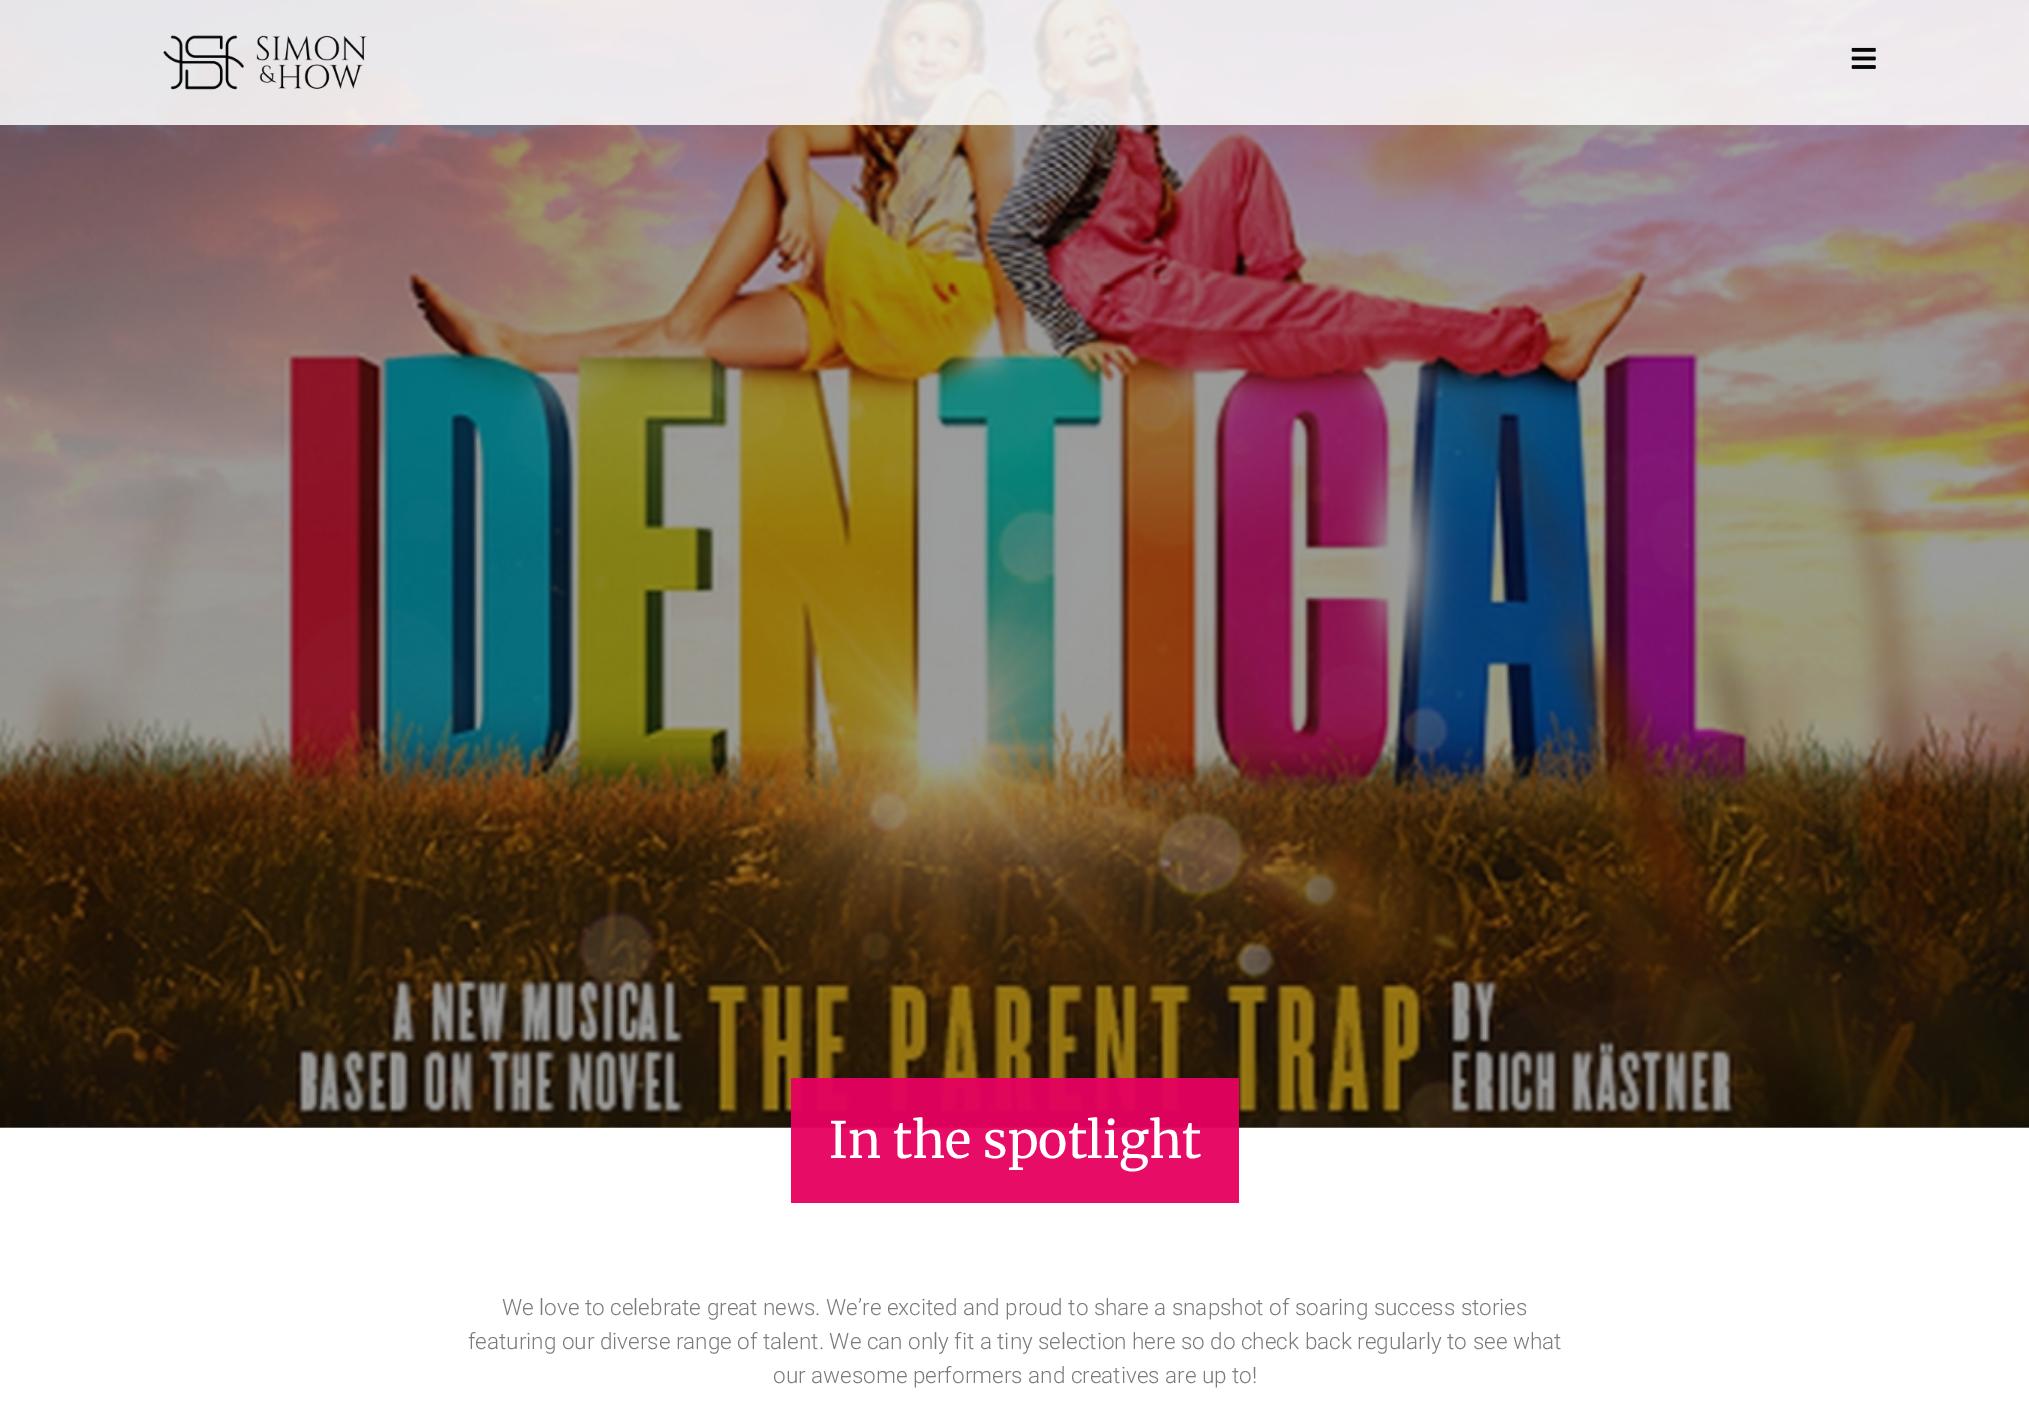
%!PS
<< /PageSize [2029 1414] /PageUsesTransparency true >> setpagedevice
/rgb { 3 { 255 div 3 1 roll } repeat setrgbcolor } def
/font { [ exch dup neg 0 0 3 -1 roll 0 0 ] selectfont } def
/text { moveto show } def
/alpha { dup .setfillconstantalpha .setstrokeconstantalpha } def
/picture { 5 dict begin { /h /w /y /x /name } { exch def } forall
  gsave x y translate w h scale
  w h 8 [w 0 0 h 0 0] name (r) file false 3 colorimage grestore end } def
0 .pushpdf14devicefilter
0 1414 translate 1 -1 scale
4 setmiterlimit
255 255 255 rgb
0 0 2029 1414 rectfill
155 156 156 rgb
0 1127 2029 1 rectfill
(img_03.rgb) 0 0 2029 1128 picture
0.85 alpha
255 255 255 rgb
0 0 2029 125 rectfill
1 alpha
(img_01.rgb) 163 35 204 55 picture
(img_02.rgb) 1851 47 25 22 picture
0.95 alpha
230 0 95 rgb
791 1078 448 125 rectfill
/Merriweather-Regular 50 font
1 alpha
255 255 255 rgb
(In the spotlight) 829 1158 text
/Roboto-Light 22.5 font
122 122 122 rgb
(We love to celebrate great news. We’re excited and proud to share a snapshot of soaring success stories) 502 1315 text
(featuring our diverse range of talent. We can only fit a tiny selection here so do check back regularly to see what) 468 1349 text
(our awesome performers and creatives are up to!) 773 1383 text
.poppdf14devicefilter showpage
